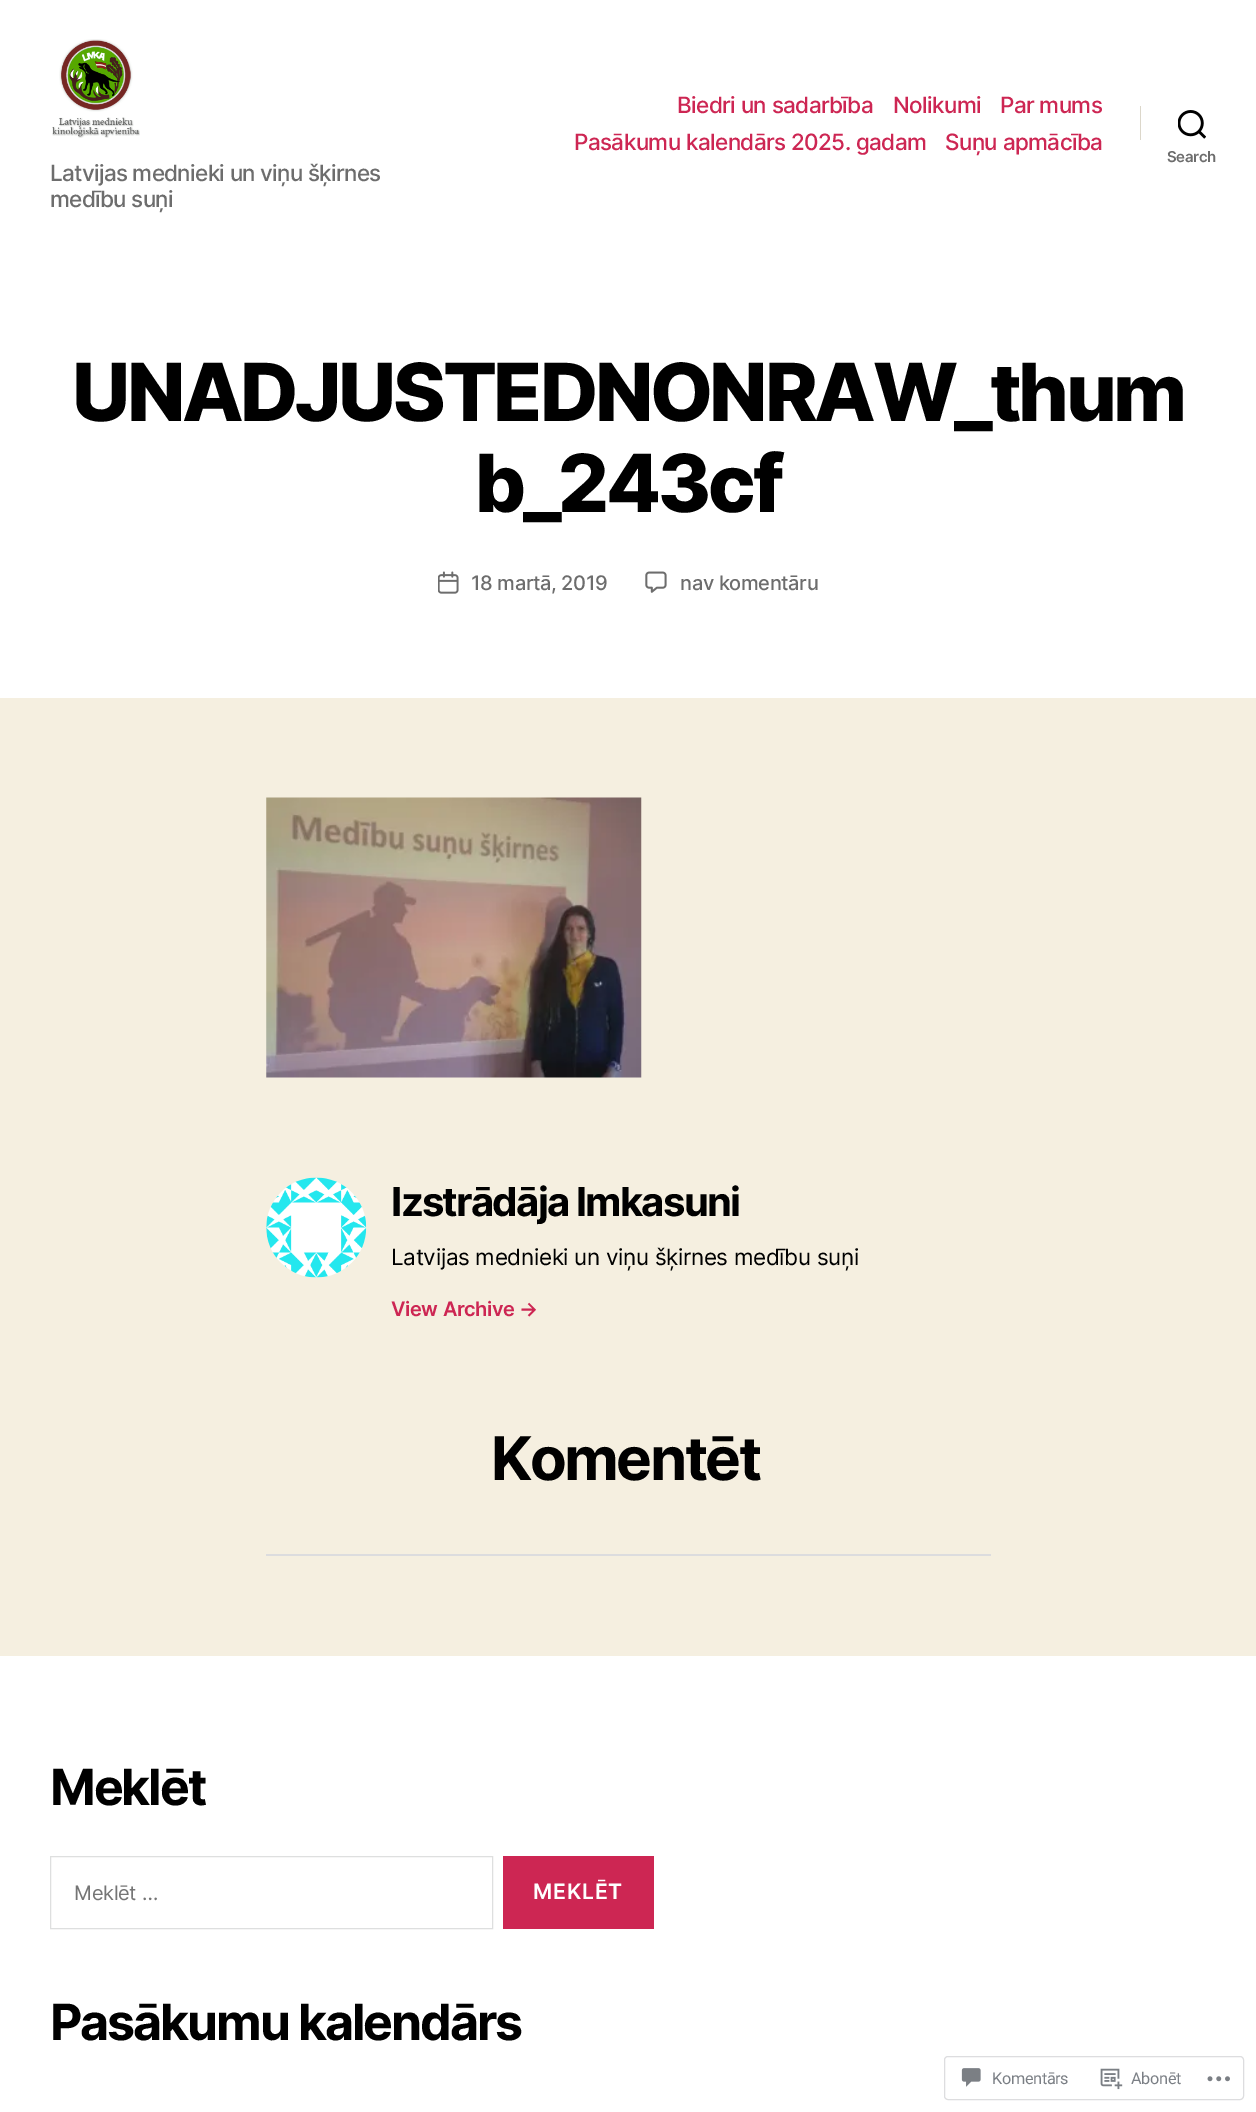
%!PS
<< /PageSize [1256 2112] >> setpagedevice
/rgb { 3 { 255 div 3 1 roll } repeat setrgbcolor } def
/font { [ exch dup neg 0 0 3 -1 roll 0 0 ] selectfont } def
/roundrect { 5 dict begin { /r /h /w /y /x } { exch def } forall
  x r add y moveto x w add y 2 copy h add r arct x w add y h add x 1 index r arct
  x y h add x y r arct x y 2 copy exch w add exch r arct closepath end } def
/picture { 5 dict begin { /h /w /y /x /name } { exch def } forall
  gsave x y translate w h scale
  w h 8 [w 0 0 h 0 0] name (r) file false 3 colorimage grestore end } def
0 2112 translate 1 -1 scale
4 setmiterlimit
245 239 224 rgb
0 0 1256 2112 rectfill
255 255 255 rgb
0 0 1256 698 rectfill
220 215 202 rgb
1140 106 1 34 rectfill
(img_01.rgb) 1178 110 28 29 picture
(img_02.rgb) 52 39 88 99 picture
(img_03.rgb) 438 571 21 23 picture
(img_04.rgb) 645 571 22 22 picture
(img_05.rgb) 266 797 376 281 picture
(img_06.rgb) 266 1177 101 101 picture
220 220 222 rgb
266 1554 725 2 rectfill
255 255 255 rgb
0 1656 1256 456 rectfill
222 223 223 rgb
50.5 1856.5 442 72 rectstroke
205 38 83 rgb
503 1856 151 73 rectfill
221 221 223 rgb
944.5 2056.5 299 43 3.5 roundrect stroke
(img_07.rgb) 961 2068 20 19 picture
(img_08.rgb) 1100 2068 23 22 picture
(img_09.rgb) 1207 2076 23 6 picture
/Inter-Medium 22.5 font
205 38 83 rgb
677 113 moveto -0.6 0 (Biedri un sadarbība) ashow
893 113 moveto -0.6 0 (Nolikumi) ashow
1000 113 moveto -0.6 0 (Par mums) ashow
574 150 moveto -0.6 0 (Pasākumu kalendārs 2025. gadam) ashow
945 150 moveto -0.6 0 (Suņu apmācība) ashow
/Inter-SemiBold 15 font
109 109 109 rgb
1167 162 moveto -0.35 0 (Search) ashow
/Inter-Medium 22.5 font
50 181 moveto -0.7 0 (Latvijas mednieki un viņu šķirnes) ashow
50 207 moveto -0.7 0 (medību suņi) ashow
/Inter-ExtraBold 80 font
0 0 0 rgb
72 421 moveto -3.3 0 (UNADJUSTEDNONRAW_thum) ashow
475 512 moveto -3.3 0 (b_243cf) ashow
/Inter-Medium 20 font
109 109 109 rgb
471 590 moveto -0.35 0 (18 martā, 2019) ashow
680 590 moveto -0.35 0 (nav komentāru) ashow
/Inter-Bold 40 font
0 0 0 rgb
391 1216 moveto -1.7 0 (Izstrādāja lmkasuni) ashow
/Inter-Regular 22.5 font
391 1265 moveto -0.35 0 (Latvijas mednieki un viņu šķirnes medību suņi) ashow
/Inter-SemiBold 20 font
205 38 83 rgb
391 1316 moveto -0.35 0 (View Archive →) ashow
/Inter-Bold 60 font
0 0 0 rgb
491 1480 moveto -2.5 0 (Komentēt) ashow
/Inter-Bold 50 font
50 1805 moveto -2.1 0 (Meklēt) ashow
/Inter-Regular 20 font
117 117 117 rgb
74 1900 moveto -0.25 0 (Meklēt …) ashow
/Inter-SemiBold 21.25 font
255 255 255 rgb
533 1899 moveto 0.75 0 (MEKLĒT) ashow
/Inter-Bold 50 font
0 0 0 rgb
50 2040 moveto -2.1 0 (Pasākumu kalendārs) ashow
/Roboto-Regular 16.25 font
123 127 133 rgb
992 2084 moveto -0.35 0 (Komentārs) ashow
1131 2084 moveto -0.35 0 (Abonēt) ashow
showpage
